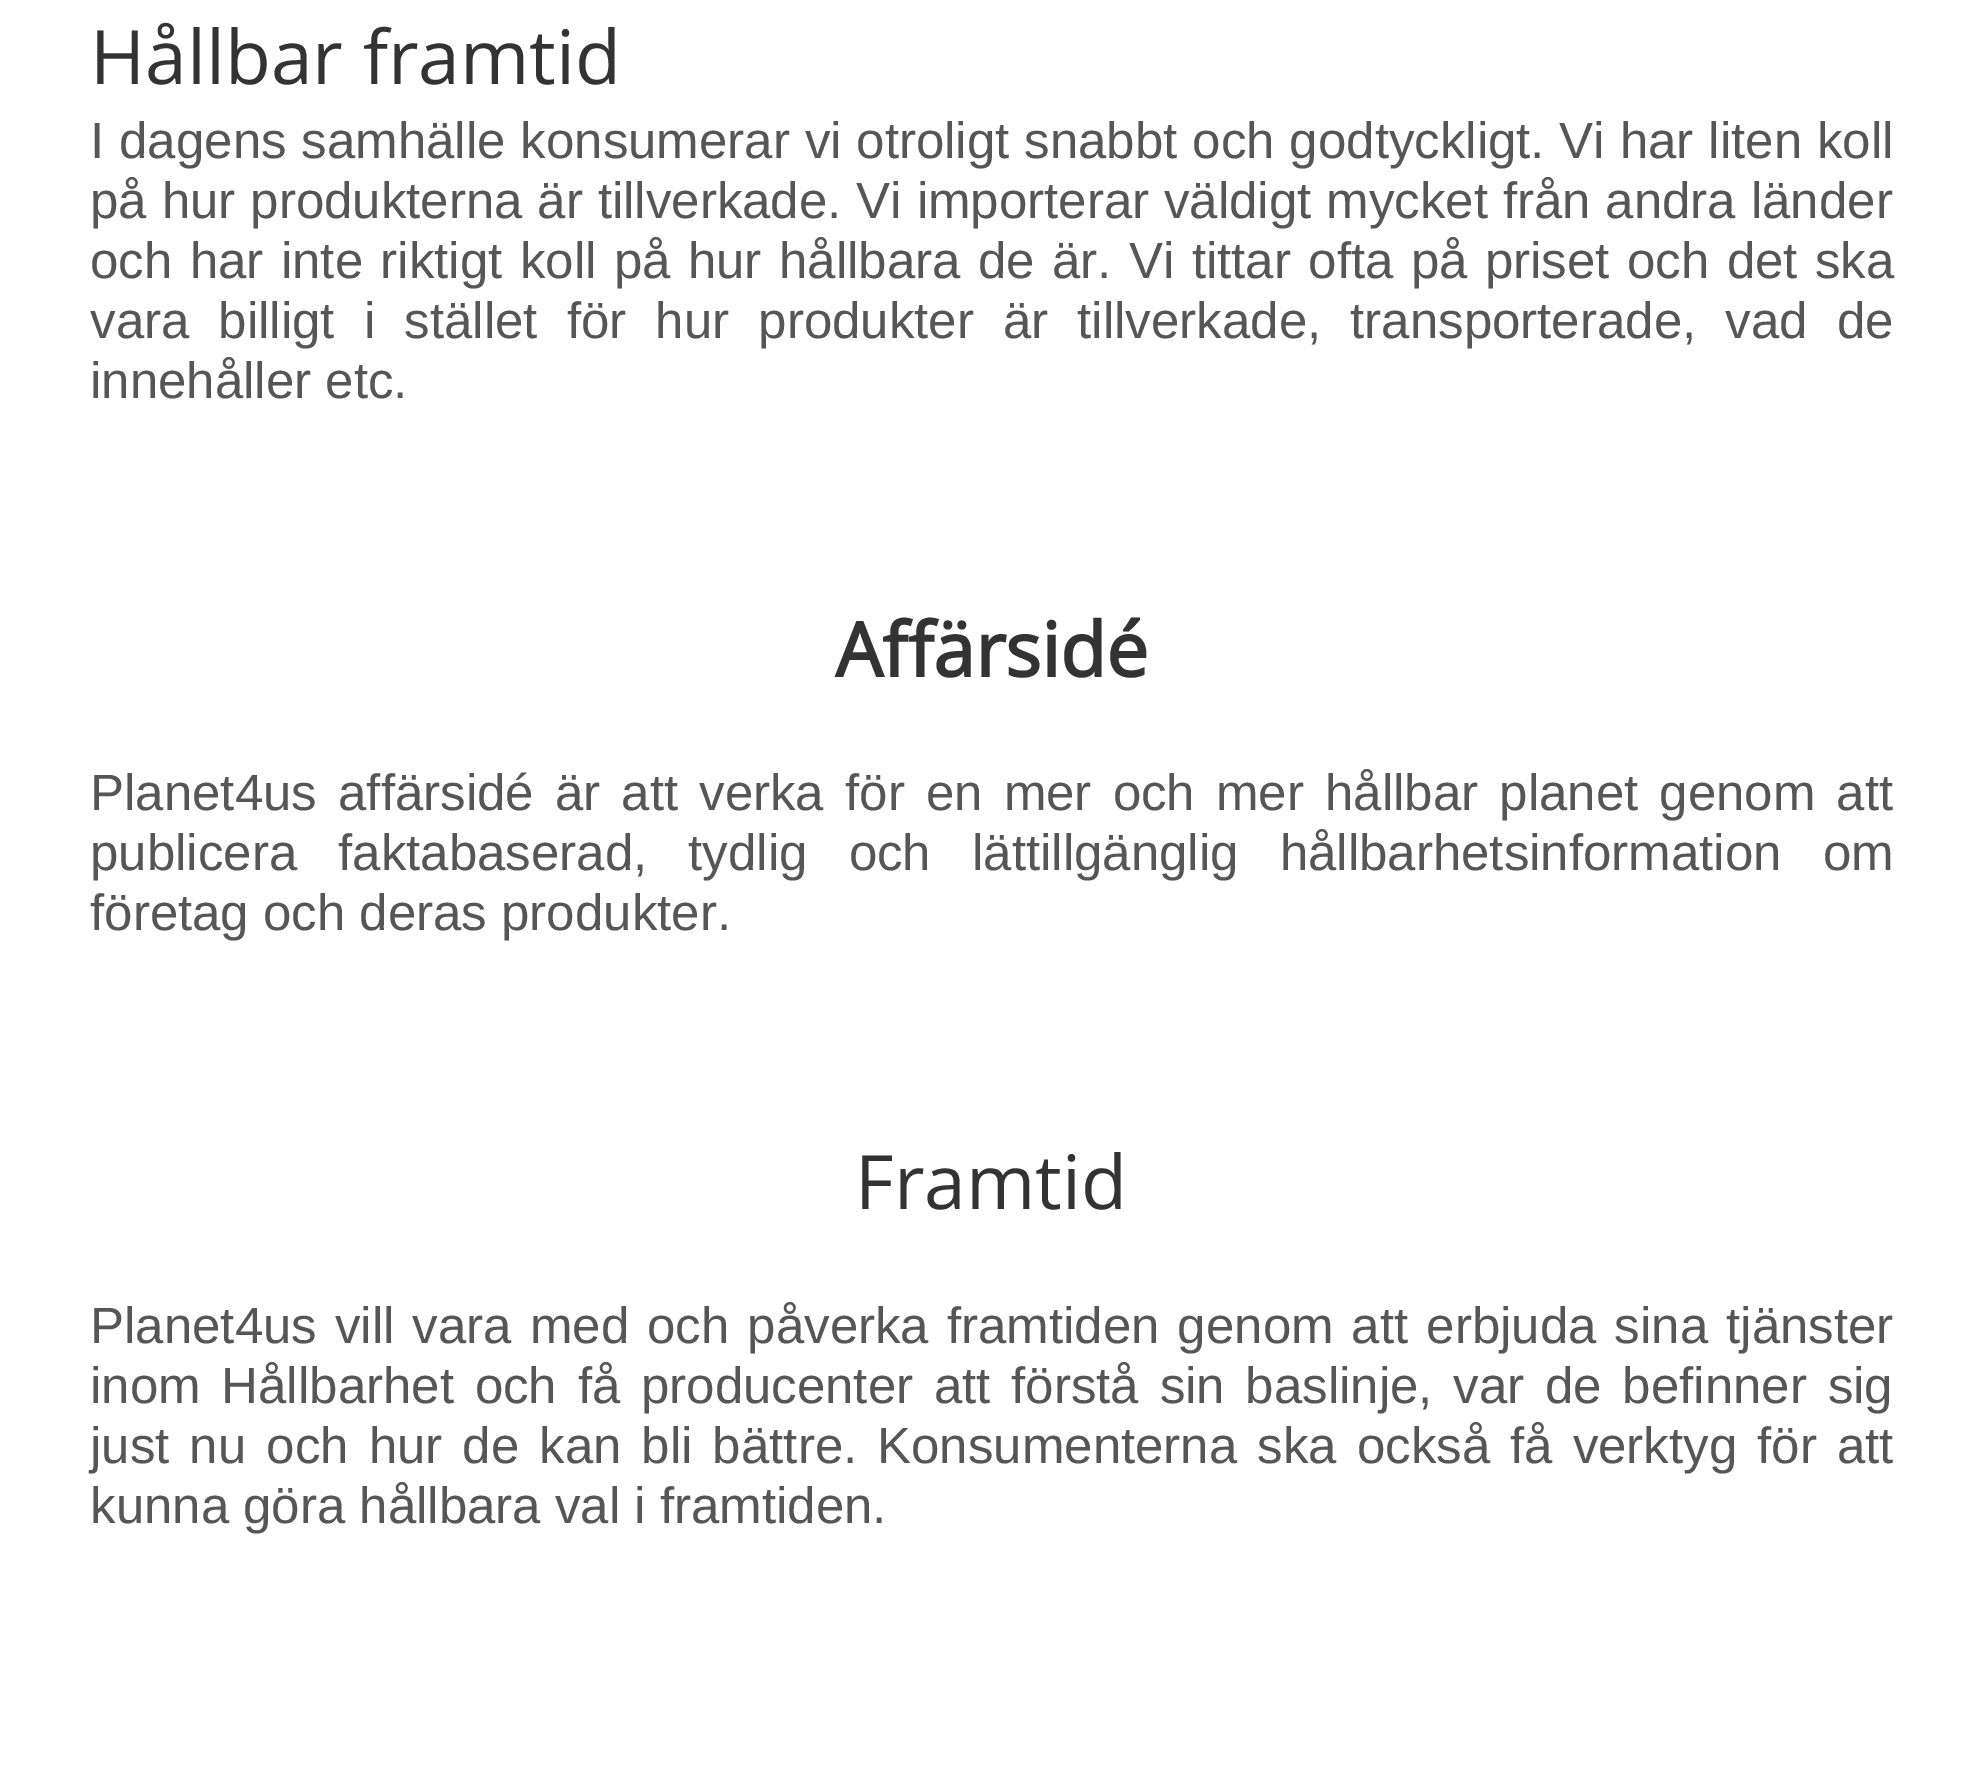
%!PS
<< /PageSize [1983 1788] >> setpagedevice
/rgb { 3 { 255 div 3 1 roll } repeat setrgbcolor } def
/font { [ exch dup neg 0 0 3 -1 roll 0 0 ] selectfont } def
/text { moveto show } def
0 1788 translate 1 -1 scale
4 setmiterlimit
255 255 255 rgb
0 0 1983 1788 rectfill
/OpenSans-Regular 75 font
51 51 51 rgb
(Hållbar framtid) 90 84 text
/LiberationSans-Regular 51 font
86 86 86 rgb
90 158 moveto 0.75 0 32 (I dagens samhälle konsumerar vi otroligt snabbt och godtyckligt. Vi har liten koll) widthshow
90 218 moveto 0.75 0 32 (på hur produkterna är tillverkade. Vi importerar väldigt mycket från andra länder) widthshow
90 278 moveto 3.25 0 32 (och har inte riktigt koll på hur hållbara de är. Vi tittar ofta på priset och det ska) widthshow
90 338 moveto 15 0 32 (vara billigt i stället för hur produkter är tillverkade, transporterade, vad de) widthshow
(innehåller etc.) 90 398 text
/OpenSans-Bold 75 font
51 51 51 rgb
(Affärsidé) 835 677 text
/LiberationSans-Regular 51 font
86 86 86 rgb
90 810 moveto 7 0 32 (Planet4us affärsidé är att verka för en mer och mer hållbar planet genom att) widthshow
90 870 moveto 27 0 32 (publicera faktabaserad, tydlig och lättillgänglig hållbarhetsinformation om) widthshow
(företag och deras produkter.) 90 930 text
/OpenSans-Regular 75 font
51 51 51 rgb
(Framtid) 855 1209 text
/LiberationSans-Regular 51 font
86 86 86 rgb
90 1343 moveto 3.9 0 32 (Planet4us vill vara med och påverka framtiden genom att erbjuda sina tjänster) widthshow
90 1403 moveto 6.6 0 32 (inom Hållbarhet och få producenter att förstå sin baslinje, var de befinner sig) widthshow
90 1463 moveto 5.9 0 32 (just nu och hur de kan bli bättre. Konsumenterna ska också få verktyg för att) widthshow
(kunna göra hållbara val i framtiden.) 90 1523 text
showpage
